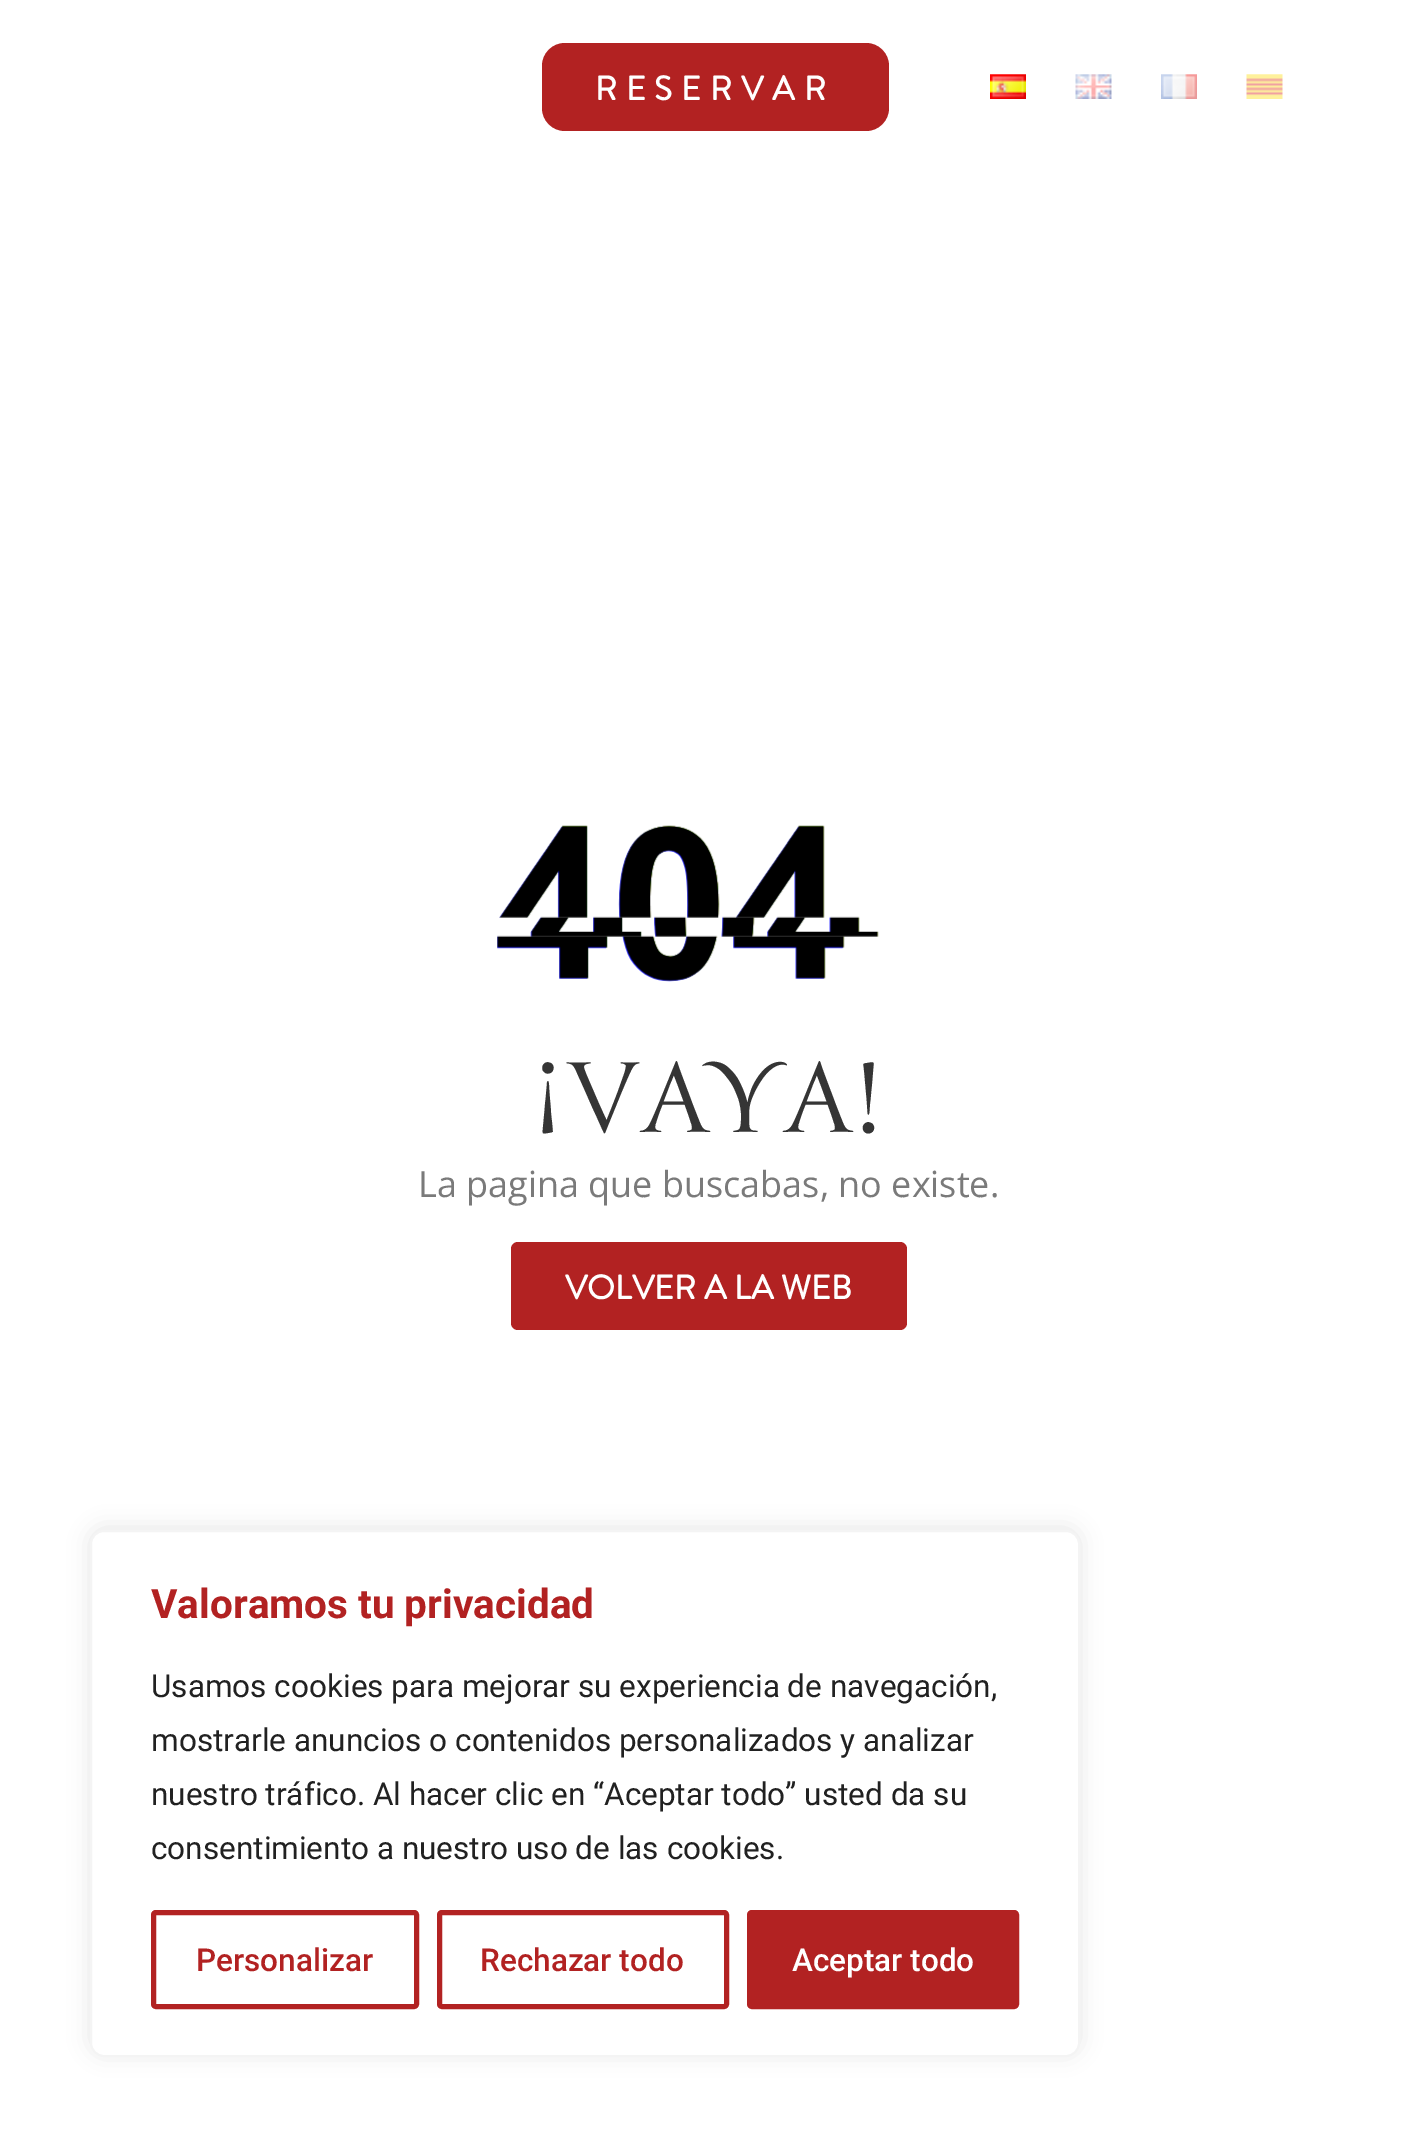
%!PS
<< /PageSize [1416 2146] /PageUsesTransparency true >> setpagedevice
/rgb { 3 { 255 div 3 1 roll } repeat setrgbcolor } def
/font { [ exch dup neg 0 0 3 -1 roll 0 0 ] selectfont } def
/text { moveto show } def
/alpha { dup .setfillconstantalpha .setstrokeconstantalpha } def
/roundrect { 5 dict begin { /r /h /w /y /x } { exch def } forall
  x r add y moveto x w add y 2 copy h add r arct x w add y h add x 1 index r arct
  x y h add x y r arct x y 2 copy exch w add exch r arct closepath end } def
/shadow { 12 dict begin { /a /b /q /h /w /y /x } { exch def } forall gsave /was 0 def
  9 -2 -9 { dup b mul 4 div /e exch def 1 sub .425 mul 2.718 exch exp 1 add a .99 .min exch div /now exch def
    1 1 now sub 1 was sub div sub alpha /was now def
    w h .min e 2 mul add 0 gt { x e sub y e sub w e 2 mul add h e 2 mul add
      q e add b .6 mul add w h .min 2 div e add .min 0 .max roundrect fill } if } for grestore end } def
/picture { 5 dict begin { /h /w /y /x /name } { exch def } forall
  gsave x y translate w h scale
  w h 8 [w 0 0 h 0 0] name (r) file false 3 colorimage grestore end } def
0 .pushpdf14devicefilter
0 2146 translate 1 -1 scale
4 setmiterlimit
255 255 255 rgb
0 0 1416 2146 rectfill
178 34 34 rgb
542 43 347 88 23 roundrect fill
(img_01.rgb) 990 74 36 25 picture
(img_02.rgb) 1075 74 37 25 picture
(img_03.rgb) 1161 74 36 25 picture
(img_04.rgb) 1246 74 37 25 picture
(img_05.rgb) 497 825 382 157 picture
511 1242 396 88 7 roundrect fill
172 171 171 rgb
90 1528 990 526 14 11 0.3 shadow
255 255 255 rgb
91 1531 988 525 13 roundrect gsave fill grestore
244 244 244 rgb
2 setlinewidth
stroke
178 34 34 rgb
5 setlinewidth
153.5 1912.5 263 94 2.5 roundrect stroke
439.5 1912.5 287 94 2.5 roundrect stroke
749.5 1912.5 267 94 2.5 roundrect gsave fill grestore
stroke
/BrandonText-Bold 33.75 font
255 255 255 rgb
595 100 moveto 9 0 (RESERVAR) ashow
/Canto-Regular 112.5 font
53 53 53 rgb
(¡VAYA!) 531 1132 text
/OpenSans-Regular 36 font
122 122 122 rgb
(La pagina que buscabas, no existe.) 418 1197 text
/BrandonText-Bold 33.75 font
255 255 255 rgb
(VOLVER A LA WEB) 565 1299 text
/Roboto-Bold 40.5 font
178 34 34 rgb
(Valoramos tu privacidad) 151 1618 text
/Roboto-Regular 31.5 font
33 33 33 rgb
(Usamos cookies para mejorar su experiencia de navegación,) 151 1697 text
(mostrarle anuncios o contenidos personalizados y analizar) 151 1751 text
(nuestro tráfico. Al hacer clic en “Aceptar todo” usted da su) 151 1805 text
(consentimiento a nuestro uso de las cookies.) 151 1859 text
/Roboto-Medium 31.5 font
178 34 34 rgb
(Personalizar) 196 1971 text
(Rechazar todo) 480 1971 text
255 255 255 rgb
(Aceptar todo) 792 1971 text
.poppdf14devicefilter showpage
